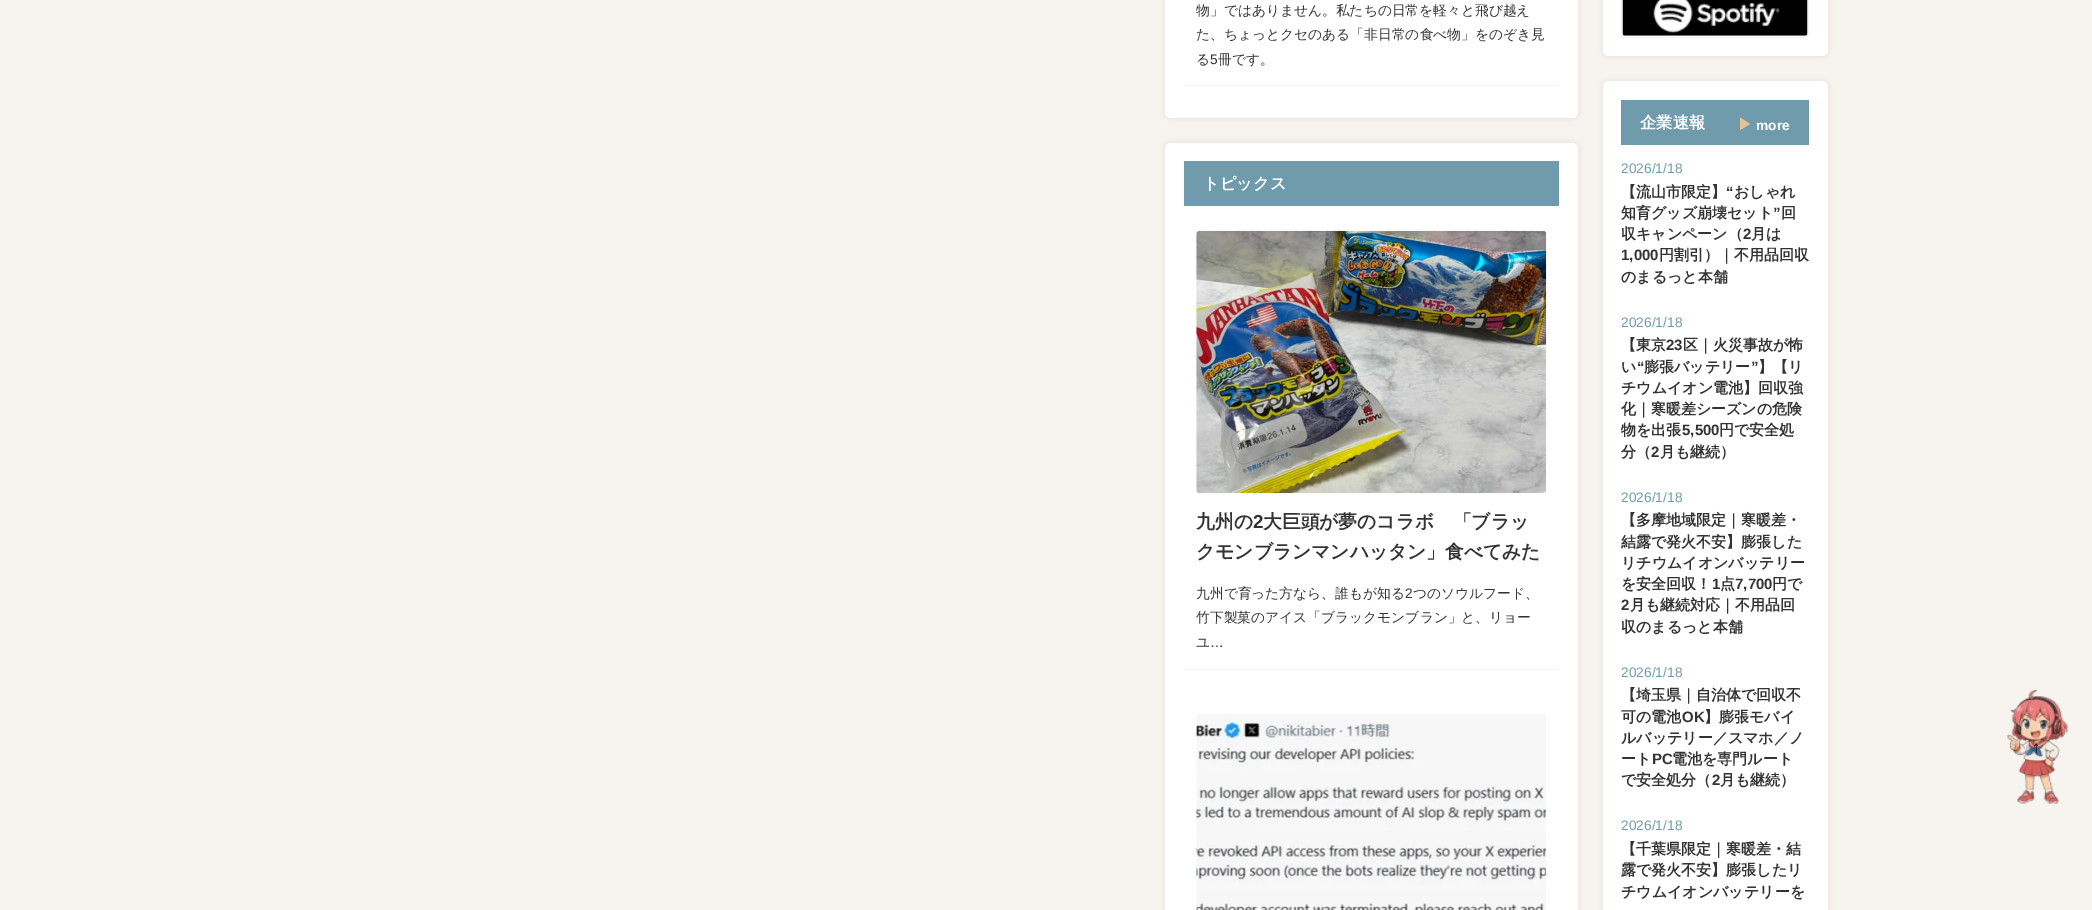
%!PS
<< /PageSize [2092 910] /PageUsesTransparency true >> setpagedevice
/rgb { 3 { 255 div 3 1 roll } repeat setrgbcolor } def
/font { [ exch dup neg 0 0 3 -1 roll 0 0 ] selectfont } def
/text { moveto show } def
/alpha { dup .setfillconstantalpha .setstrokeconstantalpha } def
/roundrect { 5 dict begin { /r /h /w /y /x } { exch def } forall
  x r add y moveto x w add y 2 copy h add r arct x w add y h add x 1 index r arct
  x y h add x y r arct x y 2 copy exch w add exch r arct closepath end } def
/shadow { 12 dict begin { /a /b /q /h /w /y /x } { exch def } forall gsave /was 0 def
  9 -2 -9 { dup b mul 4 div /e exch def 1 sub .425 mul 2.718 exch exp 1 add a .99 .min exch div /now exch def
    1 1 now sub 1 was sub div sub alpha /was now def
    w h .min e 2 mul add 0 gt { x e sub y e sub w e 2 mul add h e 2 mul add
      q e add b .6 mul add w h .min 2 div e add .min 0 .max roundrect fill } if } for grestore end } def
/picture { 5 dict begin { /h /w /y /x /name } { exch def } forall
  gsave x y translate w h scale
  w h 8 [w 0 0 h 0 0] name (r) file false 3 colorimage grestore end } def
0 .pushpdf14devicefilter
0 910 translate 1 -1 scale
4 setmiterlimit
247 244 239 rgb
0 0 2092 910 rectfill
221 221 221 rgb
1165 -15 413 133 6 3 1 shadow
255 255 255 rgb
1165 -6 413 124 6 roundrect fill
247 244 239 rgb
1184 85 375 1 rectfill
221 221 221 rgb
1165 143 413 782 6 3 1 shadow
255 255 255 rgb
1165 143 413 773 6 roundrect fill
112 155 172 rgb
1184 161 375 45 rectfill
247 244 239 rgb
1184 669 375 1 rectfill
(img_01.rgb) 1196 230 351 264 picture
(img_02.rgb) 1196 713 351 197 picture
221 221 221 rgb
1603 -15 225 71 6 3 1 shadow
255 255 255 rgb
1603 -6 225 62 6 roundrect fill
247 244 239 rgb
1621.5 -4.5 187 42 3.5 roundrect stroke
(img_03.rgb) 1622 0 186 36 picture
221 221 221 rgb
1603 81 225 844 6 3 1 shadow
255 255 255 rgb
1603 81 225 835 6 roundrect fill
112 155 172 rgb
1621 100 188 45 rectfill
228 195 144 rgb
1740 130 moveto 0 -12.5 rlineto 10 6.5 rlineto closepath fill
(img_04.rgb) 2007 689 61 115 picture
/WenQuanYiZenHei-Medium 13.75 font
51 51 51 rgb
(物」ではありません。私たちの日常を軽々と飛び越え) 1196 15 text
(た、ちょっとクセのある「非日常の食べ物」をのぞき見) 1196 39 text
(る) 1196 64 text
/LiberationSans-Regular 13.75 font
(5) 1210 64 text
/WenQuanYiZenHei-Medium 13.75 font
(冊です。) 1218 64 text
/WenQuanYiZenHei-Bold 16.25 font
255 255 255 rgb
(トピックス) 1203 189 text
/WenQuanYiZenHei-Bold 18.75 font
51 51 51 rgb
(九州の) 1196 528 text
/LiberationSans-Bold 18.75 font
(2) 1253 528 text
/WenQuanYiZenHei-Bold 18.75 font
(大巨頭が夢のコラボ　「ブラッ) 1263 528 text
(クモンブランマンハッタン」食べてみた) 1196 558 text
/WenQuanYiZenHei-Medium 13.75 font
(九州で育った方なら、誰もが知る) 1196 598 text
/LiberationSans-Regular 13.75 font
(2) 1405 598 text
/WenQuanYiZenHei-Medium 13.75 font
(つのソウルフード、) 1413 598 text
(竹下製菓のアイス「ブラックモンブラン」と、リョー) 1196 622 text
(ユ) 1196 647 text
/LiberationSans-Regular 13.75 font
(…) 1210 647 text
/WenQuanYiZenHei-Bold 16.25 font
255 255 255 rgb
(企業速報) 1640 128 text
/LiberationSans-Bold 13.75 font
(more) 1756 130 text
/LiberationSans-Regular 13.75 font
112 155 172 rgb
(2026/1/18) 1621 173 text
/WenQuanYiZenHei-Bold 15 font
51 51 51 rgb
(【流山市限定】) 1621 197 text
/LiberationSans-Bold 15 font
(“) 1726 197 text
/WenQuanYiZenHei-Bold 15 font
(おしゃれ) 1734 197 text
(知育グッズ崩壊セット) 1621 218 text
/LiberationSans-Bold 15 font
(”) 1773 218 text
/WenQuanYiZenHei-Bold 15 font
(回) 1781 218 text
(収キャンペーン（) 1621 239 text
/LiberationSans-Bold 15 font
(2) 1743 239 text
/WenQuanYiZenHei-Bold 15 font
(月は) 1751 239 text
/LiberationSans-Bold 15 font
(1,000) 1621 260 text
/WenQuanYiZenHei-Bold 15 font
(円割引）｜不用品回収) 1659 260 text
(のまるっと本舗) 1621 282 text
/LiberationSans-Regular 13.75 font
112 155 172 rgb
(2026/1/18) 1621 327 text
/WenQuanYiZenHei-Bold 15 font
51 51 51 rgb
(【東京) 1621 350 text
/LiberationSans-Bold 15 font
(23) 1666 350 text
/WenQuanYiZenHei-Bold 15 font
(区｜火災事故が怖) 1683 350 text
(い) 1621 372 text
/LiberationSans-Bold 15 font
(“) 1637 372 text
/WenQuanYiZenHei-Bold 15 font
(膨張バッテリー) 1644 372 text
/LiberationSans-Bold 15 font
(”) 1751 372 text
/WenQuanYiZenHei-Bold 15 font
(】【リ) 1758 372 text
(チウムイオン電池】回収強) 1621 393 text
(化｜寒暖差シーズンの危険) 1621 414 text
(物を出張) 1621 435 text
/LiberationSans-Bold 15 font
(5,500) 1682 435 text
/WenQuanYiZenHei-Bold 15 font
(円で安全処) 1719 435 text
(分（) 1621 457 text
/LiberationSans-Bold 15 font
(2) 1651 457 text
/WenQuanYiZenHei-Bold 15 font
(月も継続）) 1660 457 text
/LiberationSans-Regular 13.75 font
112 155 172 rgb
(2026/1/18) 1621 502 text
/WenQuanYiZenHei-Bold 15 font
51 51 51 rgb
(【多摩地域限定｜寒暖差・) 1621 525 text
(結露で発火不安】膨張した) 1621 547 text
(リチウムイオンバッテリー) 1621 568 text
(を安全回収！) 1621 589 text
/LiberationSans-Bold 15 font
(1) 1712 589 text
/WenQuanYiZenHei-Bold 15 font
(点) 1720 589 text
/LiberationSans-Bold 15 font
(7,700) 1735 589 text
/WenQuanYiZenHei-Bold 15 font
(円で) 1772 589 text
/LiberationSans-Bold 15 font
(2) 1621 610 text
/WenQuanYiZenHei-Bold 15 font
(月も継続対応｜不用品回) 1630 610 text
(収のまるっと本舗) 1621 632 text
/LiberationSans-Regular 13.75 font
112 155 172 rgb
(2026/1/18) 1621 677 text
/WenQuanYiZenHei-Bold 15 font
51 51 51 rgb
(【埼玉県｜自治体で回収不) 1621 700 text
(可の電池) 1621 722 text
/LiberationSans-Bold 15 font
(OK) 1682 722 text
/WenQuanYiZenHei-Bold 15 font
(】膨張モバイ) 1704 722 text
(ルバッテリー／スマホ／ノ) 1621 743 text
(ート) 1621 764 text
/LiberationSans-Bold 15 font
(PC) 1652 764 text
/WenQuanYiZenHei-Bold 15 font
(電池を専門ルート) 1672 764 text
(で安全処分（) 1621 785 text
/LiberationSans-Bold 15 font
(2) 1712 785 text
/WenQuanYiZenHei-Bold 15 font
(月も継続）) 1720 785 text
/LiberationSans-Regular 13.75 font
112 155 172 rgb
(2026/1/18) 1621 830 text
/WenQuanYiZenHei-Bold 15 font
51 51 51 rgb
(【千葉県限定｜寒暖差・結) 1621 854 text
(露で発火不安】膨張したリ) 1621 875 text
(チウムイオンバッテリーを) 1621 897 text
/LiberationSans-Regular 17 font
0 0 0 rgb
(↑) 2032 753 text
.poppdf14devicefilter showpage
